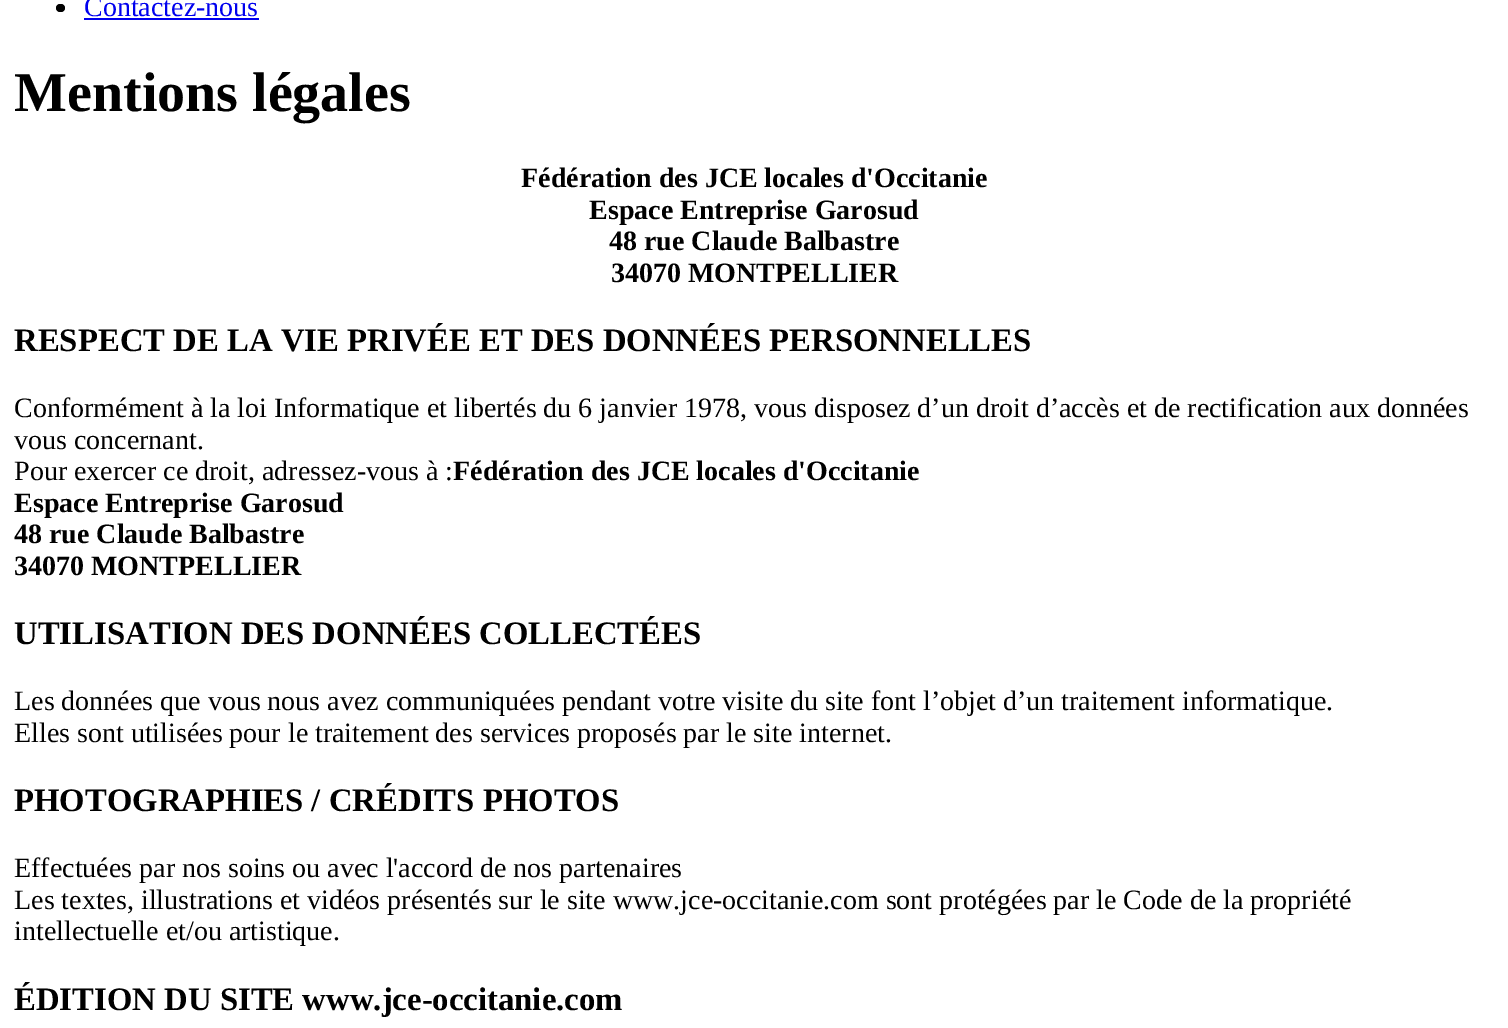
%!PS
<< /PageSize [1508 1028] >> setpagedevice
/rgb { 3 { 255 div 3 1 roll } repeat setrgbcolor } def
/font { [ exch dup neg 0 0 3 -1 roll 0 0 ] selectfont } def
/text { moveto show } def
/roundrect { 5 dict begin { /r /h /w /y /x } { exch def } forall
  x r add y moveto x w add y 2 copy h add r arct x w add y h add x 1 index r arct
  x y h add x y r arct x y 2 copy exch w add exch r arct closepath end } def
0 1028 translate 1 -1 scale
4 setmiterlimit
255 255 255 rgb
0 0 1508 1028 rectfill
0 0 0 rgb
56 4 9 8 4 roundrect fill
0 0 238 rgb
84 18 175 2 rectfill
/LiberationSerif-Regular 28 font
(Contactez-nous) 84 16 text
/LiberationSerif-Bold 56 font
0 0 0 rgb
(Mentions légales) 14 111 text
/LiberationSerif-Bold 28 font
(Fédération des JCE locales d'Occitanie) 521 187 text
(Espace Entreprise Garosud) 589 219 text
(48 rue Claude Balbastre) 609 250 text
(34070 MONTPELLIER) 611 282 text
/LiberationSerif-Bold 32.75 font
(RESPECT DE LA VIE PRIVÉE ET DES DONNÉES PERSONNELLES) 14 351 text
/LiberationSerif-Regular 28 font
(Conformément à la loi Informatique et libertés du 6 janvier 1978, vous disposez d’un droit d’accès et de rectification aux données) 14 417 text
(vous concernant.) 14 449 text
(Pour exercer ce droit, adressez-vous à :) 14 480 text
/LiberationSerif-Bold 28 font
(Fédération des JCE locales d'Occitanie) 453 480 text
(Espace Entreprise Garosud) 14 512 text
(48 rue Claude Balbastre) 14 543 text
(34070 MONTPELLIER) 14 575 text
/LiberationSerif-Bold 32.75 font
(UTILISATION DES DONNÉES COLLECTÉES) 14 644 text
/LiberationSerif-Regular 28 font
(Les données que vous nous avez communiquées pendant votre visite du site font l’objet d’un traitement informatique.) 14 710 text
(Elles sont utilisées pour le traitement des services proposés par le site internet.) 14 742 text
/LiberationSerif-Bold 32.75 font
(PHOTOGRAPHIES / CRÉDITS PHOTOS) 14 811 text
/LiberationSerif-Regular 28 font
(Effectuées par nos soins ou avec l'accord de nos partenaires) 14 877 text
(Les textes, illustrations et vidéos présentés sur le site www.jce-occitanie.com sont protégées par le Code de la propriété) 14 909 text
(intellectuelle et/ou artistique.) 14 940 text
/LiberationSerif-Bold 32.75 font
(ÉDITION DU SITE www.jce-occitanie.com) 14 1010 text
showpage
